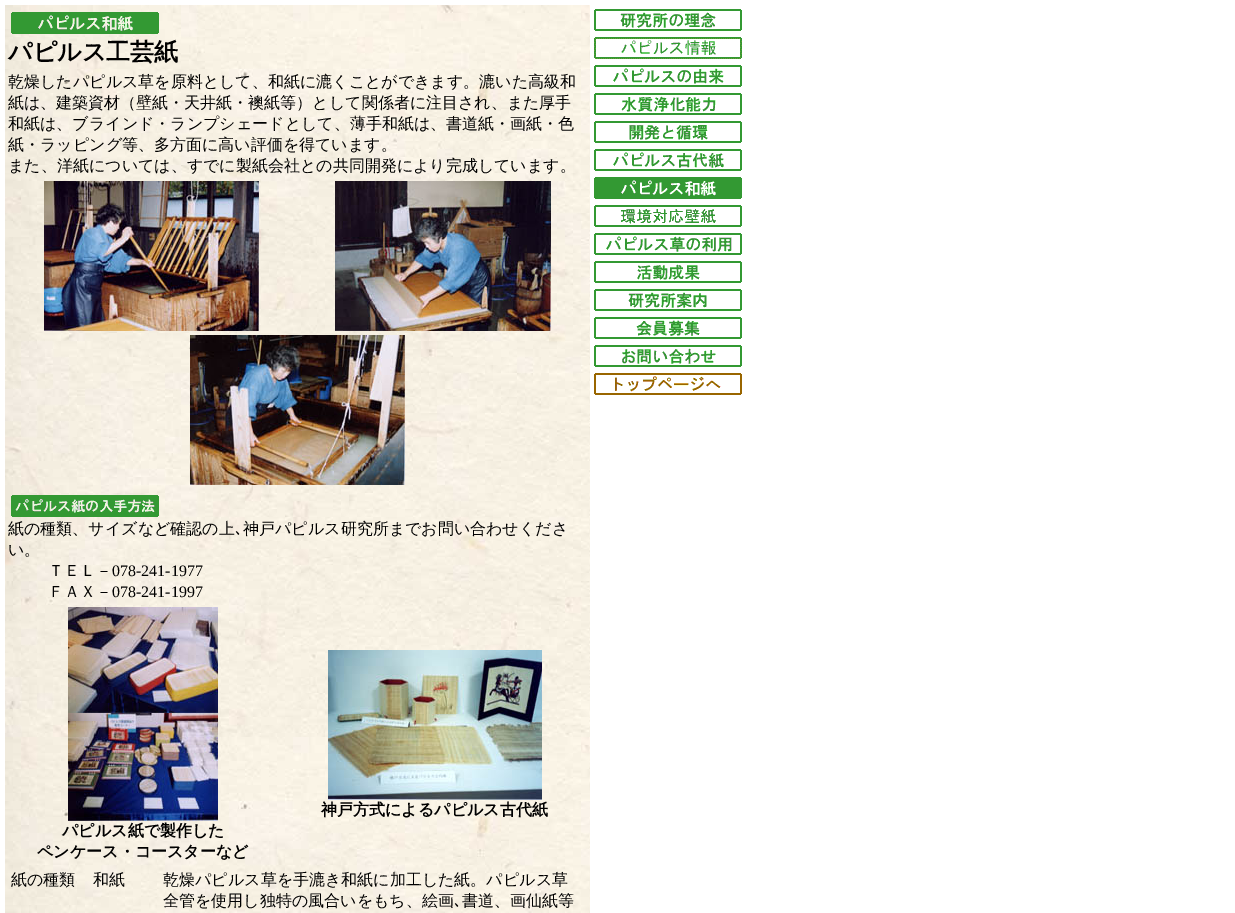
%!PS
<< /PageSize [1235 913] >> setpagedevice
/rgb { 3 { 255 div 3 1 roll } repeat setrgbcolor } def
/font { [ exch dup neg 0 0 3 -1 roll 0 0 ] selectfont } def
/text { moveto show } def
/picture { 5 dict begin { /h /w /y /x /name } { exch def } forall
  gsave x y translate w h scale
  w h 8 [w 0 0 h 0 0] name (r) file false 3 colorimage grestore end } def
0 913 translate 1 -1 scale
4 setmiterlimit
255 255 255 rgb
0 0 1235 913 rectfill
(img_01.rgb) 5 5 585 908 picture
(img_02.rgb) 11 12 148 22 picture
(img_03.rgb) 44 181 215 150 picture
(img_04.rgb) 335 181 216 150 picture
(img_05.rgb) 190 335 215 150 picture
(img_06.rgb) 11 495 148 22 picture
(img_07.rgb) 328 650 214 150 picture
(img_08.rgb) 68 607 150 106 picture
(img_09.rgb) 68 713 150 108 picture
(img_10.rgb) 594 9 148 22 picture
(img_11.rgb) 594 37 148 22 picture
(img_12.rgb) 594 65 148 22 picture
(img_13.rgb) 594 93 148 22 picture
(img_14.rgb) 594 121 148 22 picture
(img_15.rgb) 594 149 148 22 picture
(img_16.rgb) 594 177 148 22 picture
(img_17.rgb) 594 205 148 22 picture
(img_18.rgb) 594 233 148 22 picture
(img_19.rgb) 594 261 148 22 picture
(img_20.rgb) 594 289 148 22 picture
(img_21.rgb) 594 317 148 22 picture
(img_22.rgb) 594 345 148 22 picture
(img_23.rgb) 594 373 148 22 picture
/WenQuanYiZenHei-Bold 24 font
0 0 0 rgb
(パピルス工芸紙) 8 60 text
/WenQuanYiZenHei-Medium 16 font
(乾燥したパピルス草を原料として、和紙に漉くことができます。漉いた高級和) 8 87 text
(紙は、建築資材（壁紙・天井紙・襖紙等）として関係者に注目され、また厚手) 8 108 text
(和紙は、ブラインド・ランプシェードとして、薄手和紙は、書道紙・画紙・色) 8 129 text
(紙・ラッピング等、多方面に高い評価を得ています。) 8 150 text
(また、洋紙については、すでに製紙会社との共同開発により完成しています。) 8 171 text
(紙の種類、サイズなど確認の上) 8 534 text
/IPAGothic-Regular 16 font
(､) 235 534 text
/WenQuanYiZenHei-Medium 16 font
(神戸パピルス研究所までお問い合わせくださ) 243 534 text
(い。) 8 555 text
(ＴＥＬ－) 48 576 text
/LiberationSerif-Regular 16 font
(078-241-1977) 112 576 text
/WenQuanYiZenHei-Medium 16 font
(ＦＡＸ－) 48 597 text
/LiberationSerif-Regular 16 font
(078-241-1997) 112 597 text
/WenQuanYiZenHei-Bold 16 font
(神戸方式によるパピルス古代紙) 321 815 text
(パピルス紙で製作した) 62 836 text
(ペンケース・コースターなど) 37 857 text
/WenQuanYiZenHei-Medium 16 font
(紙の種類) 11 885 text
(和紙) 93 885 text
(乾燥パピルス草を手漉き和紙に加工した紙。パピルス草) 163 885 text
(全管を使用し独特の風合いをもち、絵画) 163 906 text
/IPAGothic-Regular 16 font
(､) 454 906 text
/WenQuanYiZenHei-Medium 16 font
(書道、画仙紙等) 462 906 text
showpage
